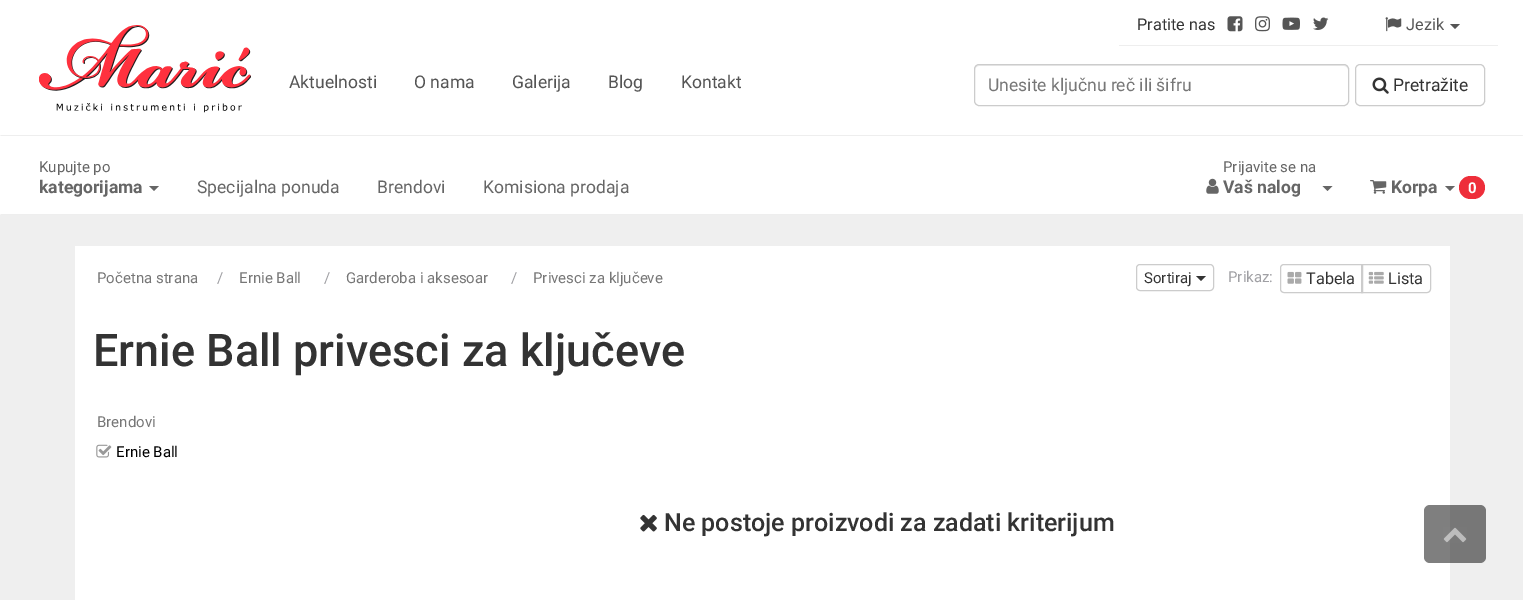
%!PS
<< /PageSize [1523 600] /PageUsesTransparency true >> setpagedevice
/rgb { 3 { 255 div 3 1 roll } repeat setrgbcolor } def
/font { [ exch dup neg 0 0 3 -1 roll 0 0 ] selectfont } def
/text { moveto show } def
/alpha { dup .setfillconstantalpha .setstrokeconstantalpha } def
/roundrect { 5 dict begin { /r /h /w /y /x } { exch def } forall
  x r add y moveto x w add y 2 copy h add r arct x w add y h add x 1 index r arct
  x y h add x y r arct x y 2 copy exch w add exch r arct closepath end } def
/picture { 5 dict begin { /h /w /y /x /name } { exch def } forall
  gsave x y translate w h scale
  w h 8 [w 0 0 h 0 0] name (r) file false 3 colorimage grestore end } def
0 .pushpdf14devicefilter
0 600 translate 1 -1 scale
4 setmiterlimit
239 239 239 rgb
0 0 1523 600 rectfill
255 255 255 rgb
0 0 1523 215 rectfill
238 238 238 rgb
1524 136 moveto -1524 0 rlineto 1 -1 rlineto 1521 0 rlineto closepath fill
1119 45 379 1 rectfill
(img_01.rgb) 1227 16 16 16 picture
(img_02.rgb) 1255 16 15 16 picture
(img_03.rgb) 1282 17 18 13 picture
(img_04.rgb) 1313 17 16 13 picture
(img_05.rgb) 1385 17 17 15 picture
85 85 85 rgb
1450 24 moveto 10 0 rlineto -5 5 rlineto closepath fill
(img_06.rgb) 39 25 212 88 picture
236 236 236 rgb
979 66 moveto 365 0 rlineto 2 0 4 2 4 4 rcurveto 0 -3 -1 -5 -4 -5 rcurveto -365 0 rlineto -3 0 -4 2 -4 5 rcurveto 0 -2 2 -4 4 -4 rcurveto closepath fill
204 204 204 rgb
974.5 64.5 374 41 4.5 roundrect stroke
1355.5 64.5 129 41 4.5 roundrect stroke
(img_07.rgb) 1372 77 17 17 picture
238 238 238 rgb
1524 215 moveto -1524 0 rlineto 1 -1 rlineto 1521 0 rlineto closepath fill
102 102 102 rgb
149 186 moveto 10 0 rlineto -5 5 rlineto closepath fill
(img_08.rgb) 1206 178 13 16 picture
1322.5 186 moveto 10 0 rlineto -5 5 rlineto closepath fill
(img_09.rgb) 1370 180 17 14 picture
1445 186 moveto 10 0 rlineto -5 5 rlineto closepath fill
238 46 58 rgb
1459 176 26 23 11.5 roundrect fill
255 255 255 rgb
75 246 1375 354 rectfill
204 204 204 rgb
1136.5 264.5 77 26 3.5 roundrect stroke
51 51 51 rgb
1196 276 moveto 10 0 rlineto -5 5 rlineto closepath fill
204 204 204 rgb
1361.5 264.5 moveto 65.5 0 rlineto 2 0 3.5 1.5 3.5 3.5 rcurveto 0 21 rlineto 0 2 -1.5 3.5 -3.5 3.5 rcurveto -65.5 0 rlineto closepath stroke
1284 264.5 moveto 78.5 0 rlineto 0 28 rlineto -78.5 0 rlineto -2 0 -3.5 -1.5 -3.5 -3.5 rcurveto 0 -21 rlineto 0 -2 1.5 -3.5 3.5 -3.5 rcurveto closepath stroke
(img_10.rgb) 1287 271 15 13 picture
(img_11.rgb) 1368 271 16 13 picture
(img_12.rgb) 96 444 16 14 picture
(img_13.rgb) 640 514 17 18 picture
0.5 alpha
0 0 0 rgb
1424 505 62 58 6 roundrect fill
1 alpha
(img_14.rgb) 1443 527 24 16 picture
/Roboto-Regular 16.25 font
51 51 51 rgb
(Pratite nas) 1137 30 text
85 85 85 rgb
(Jezik) 1406 30 text
/Roboto-Regular 17.5 font
(Aktuelnosti) 289 88 text
(O nama) 414 88 text
(Galerija) 512 88 text
(Blog) 608 88 text
(Kontakt) 681 88 text
119 119 119 rgb
(Unesite ključnu reč ili šifru) 988 91 text
51 51 51 rgb
(Pretražitе) 1393 91 text
/Roboto-Regular 15 font
102 102 102 rgb
(Kupujte po) 39 172 text
/Roboto-Bold 17.5 font
(kategorijama) 39 193 text
/Roboto-Regular 17.5 font
(Specijalna ponuda) 197 193 text
(Brendovi) 377 193 text
(Komisiona prodaja) 483 193 text
/Roboto-Regular 15 font
(Prijavite se na) 1223 172 text
/Roboto-Bold 17.5 font
(Vaš nalog) 1223 193 text
(Korpa) 1391 193 text
/Roboto-Bold 15 font
255 255 255 rgb
(0) 1468 193 text
/Roboto-Regular 15 font
119 119 119 rgb
(Početna strana) 97 283 text
160 160 164 rgb
(/) 217 283 text
119 119 119 rgb
(Ernie Ball) 239 283 text
160 160 164 rgb
(/) 324 283 text
119 119 119 rgb
(Garderoba i aksesoar) 346 283 text
160 160 164 rgb
(/) 511 283 text
119 119 119 rgb
(Privesci za ključeve) 533 283 text
51 51 51 rgb
(Sortiraj) 1144 283 text
160 160 164 rgb
(Prikaz:) 1228 282 text
/Roboto-Regular 16.25 font
51 51 51 rgb
(Tabela) 1306 284 text
(Lista) 1388 284 text
/Roboto-Medium 45 font
(Ernie Ball privesci za ključeve) 93 366 text
/Roboto-Regular 15 font
119 119 119 rgb
(Brendovi) 97 427 text
0 0 0 rgb
(Ernie Ball) 116 457 text
/Roboto-Medium 25 font
51 51 51 rgb
(Ne postoje proizvodi za zadati kriterijum) 664 531 text
.poppdf14devicefilter showpage
